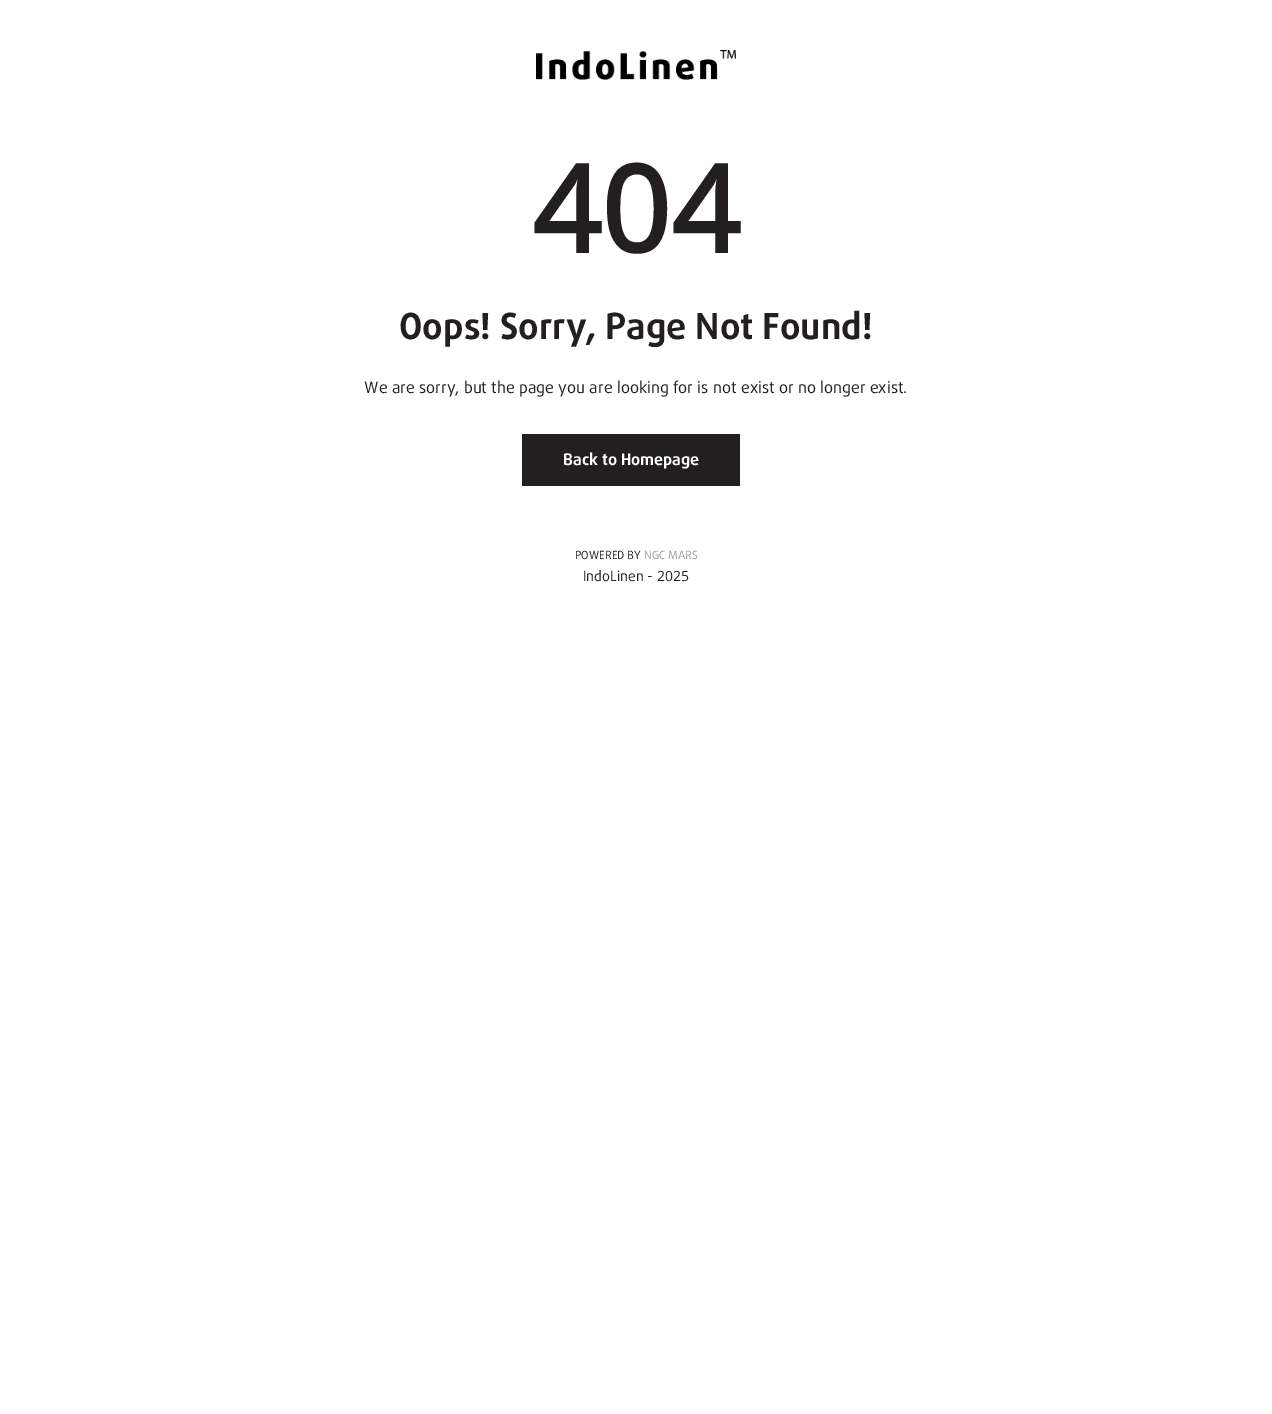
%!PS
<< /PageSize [1272 1414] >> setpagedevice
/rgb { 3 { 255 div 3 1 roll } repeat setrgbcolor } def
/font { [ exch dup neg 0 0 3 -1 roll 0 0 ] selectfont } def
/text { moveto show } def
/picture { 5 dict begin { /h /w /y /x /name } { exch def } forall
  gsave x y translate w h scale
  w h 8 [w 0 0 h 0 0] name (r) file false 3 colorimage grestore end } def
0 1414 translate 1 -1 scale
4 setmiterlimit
255 255 255 rgb
0 0 1272 1414 rectfill
(img_01.rgb) 536 50 200 30 picture
35 31 32 rgb
522 434 218 52 rectfill
/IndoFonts-Bold 120 font
(404) 532 253 text
/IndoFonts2-Bold 36 font
(Oops! Sorry, Page Not Found!) 399 339 text
/IndoFonts-Regular 16 font
(We are sorry, but the page you are looking for is not exist or no longer exist.) 364 393 text
/IndoFonts2-Bold 16 font
255 255 255 rgb
(Back to Homepage) 563 465 text
/IndoFonts-Regular 11.25 font
35 31 32 rgb
(POWERED BY) 575 559 text
156 156 156 rgb
(NGC MARS) 644 559 text
/IndoFonts-Regular 14 font
35 31 32 rgb
(IndoLinen - 2025) 583 581 text
showpage
